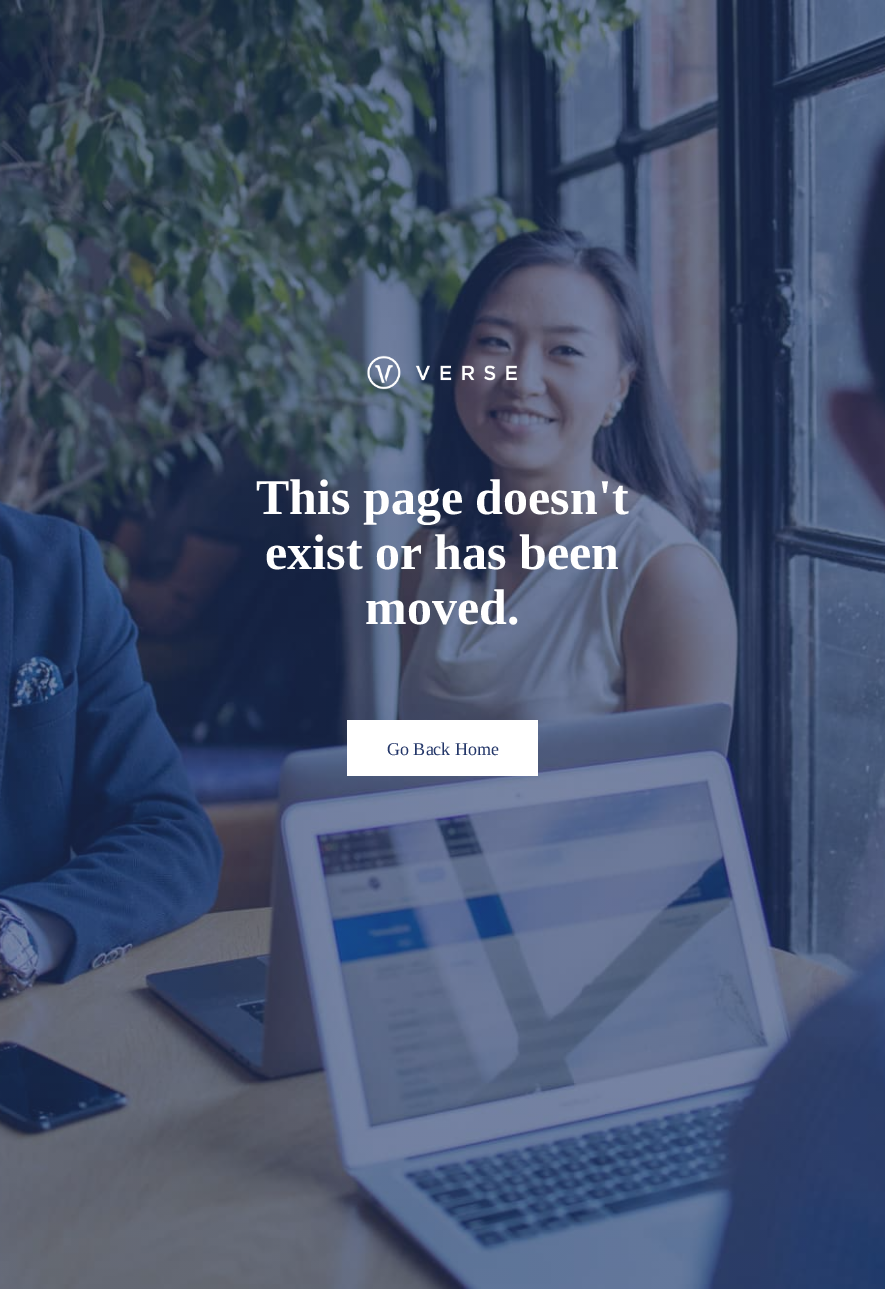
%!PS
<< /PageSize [885 1289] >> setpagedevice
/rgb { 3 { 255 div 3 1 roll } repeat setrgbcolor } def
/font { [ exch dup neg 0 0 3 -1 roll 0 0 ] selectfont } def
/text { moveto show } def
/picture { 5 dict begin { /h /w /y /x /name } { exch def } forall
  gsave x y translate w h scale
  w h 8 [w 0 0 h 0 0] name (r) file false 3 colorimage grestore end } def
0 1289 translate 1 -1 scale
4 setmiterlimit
255 255 255 rgb
0 0 885 1289 rectfill
(img_01.rgb) 0 0 885 1289 picture
(img_02.rgb) 367 355 150 35 picture
347 720 191 56 rectfill
/LiberationSerif-Bold 50 font
(This page doesn't) 256 514 text
(exist or has been) 265 569 text
(moved.) 365 624 text
/LiberationSerif-Regular 18 font
35 54 105 rgb
(Go Back Home) 387 755 text
showpage
